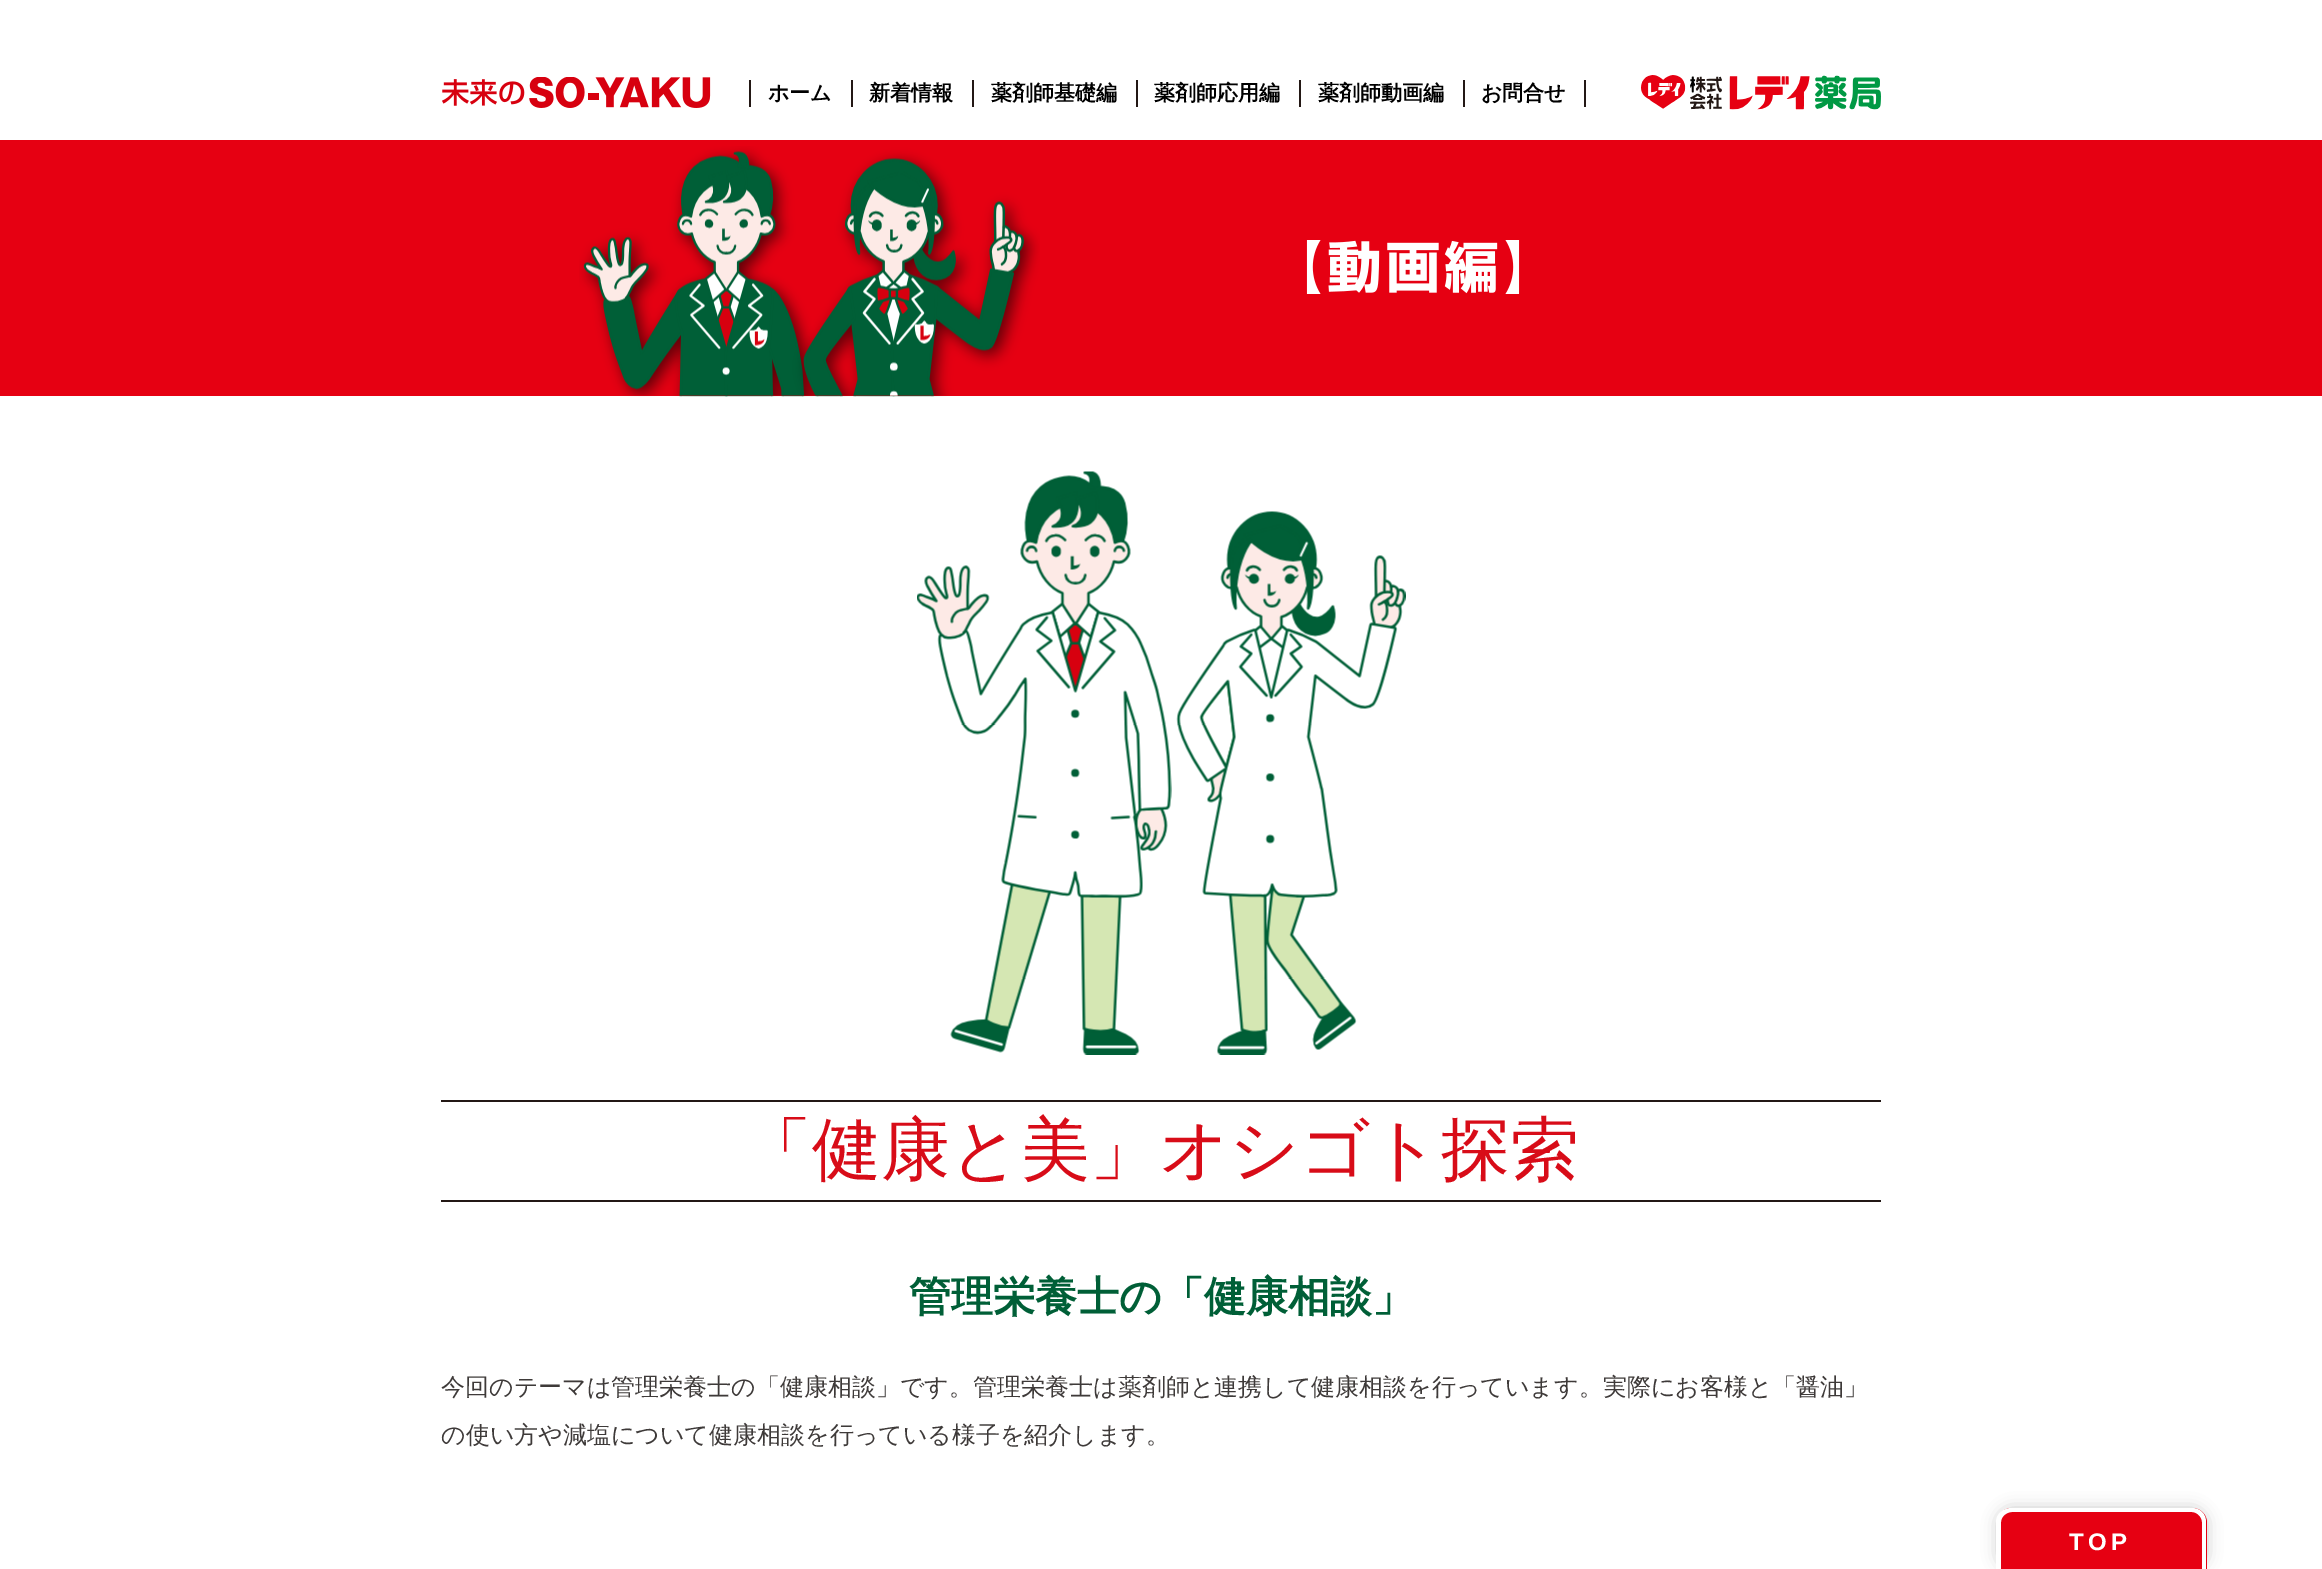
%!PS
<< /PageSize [2322 1569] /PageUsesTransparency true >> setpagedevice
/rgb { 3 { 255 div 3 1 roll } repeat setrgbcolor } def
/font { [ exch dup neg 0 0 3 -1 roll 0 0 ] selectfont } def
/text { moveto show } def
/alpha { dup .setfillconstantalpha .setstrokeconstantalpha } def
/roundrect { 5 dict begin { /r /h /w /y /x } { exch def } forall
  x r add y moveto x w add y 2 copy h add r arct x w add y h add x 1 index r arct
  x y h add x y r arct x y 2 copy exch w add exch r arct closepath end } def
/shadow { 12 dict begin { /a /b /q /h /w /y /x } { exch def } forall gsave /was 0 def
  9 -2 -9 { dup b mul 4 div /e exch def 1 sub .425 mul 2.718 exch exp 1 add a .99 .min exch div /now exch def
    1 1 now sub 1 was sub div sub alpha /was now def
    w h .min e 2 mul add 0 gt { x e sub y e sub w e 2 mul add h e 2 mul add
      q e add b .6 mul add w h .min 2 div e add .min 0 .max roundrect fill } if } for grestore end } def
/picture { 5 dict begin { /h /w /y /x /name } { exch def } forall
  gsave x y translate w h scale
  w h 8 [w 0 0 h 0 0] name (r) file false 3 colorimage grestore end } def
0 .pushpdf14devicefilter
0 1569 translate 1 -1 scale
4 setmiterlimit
255 255 255 rgb
0 0 2322 1569 rectfill
(img_01.rgb) 442 77 269 31 picture
35 24 21 rgb
749 80 2 27 rectfill
851 80 2 27 rectfill
972 80 2 27 rectfill
1136 80 2 27 rectfill
1299 80 2 27 rectfill
1584 80 2 27 rectfill
1463 80 2 27 rectfill
(img_02.rgb) 1641 75 240 35 picture
230 0 18 rgb
0 140 2322 256 rectfill
(img_03.rgb) 579 146 461 251 picture
(img_04.rgb) 1306 240 214 54 picture
(img_05.rgb) 917 471 489 584 picture
35 24 21 rgb
441 1100 1440 2 rectfill
441 1200 1440 2 rectfill
0 0 0 rgb
1997 1508 210 61 15 7.5 0.2 shadow
230 0 18 rgb
2012 1508 moveto 180 0 rlineto 8.5 0 15 6.5 15 15 rcurveto 0 46 rlineto -210 0 rlineto 0 -46 rlineto 0 -8.5 6.5 -15 15 -15 rcurveto closepath fill
255 255 255 rgb
2012 1508 moveto 180 0 rlineto 8 0 14 6 14 14 rcurveto 0 47 rlineto -210 0 rlineto 0 -47 rlineto 0 -8 7 -14 16 -14 rcurveto closepath 2012 1512 moveto 180 0 rlineto 5 0 10 5 10 10 rcurveto 0 47 rlineto -201 0 rlineto 0 -47 rlineto 0 -5 5 -10 11 -10 rcurveto closepath eofill
/WenQuanYiZenHei-Bold 21 font
0 0 0 rgb
(ホーム) 768 100 text
(新着情報) 869 100 text
(薬剤師基礎編) 991 100 text
(薬剤師応用編) 1154 100 text
(薬剤師動画編) 1318 100 text
(お問合せ) 1481 100 text
/WenQuanYiZenHei-Medium 69 font
216 12 24 rgb
(「健康と美」オシゴト探索) 743 1173 text
/WenQuanYiZenHei-Bold 42 font
0 95 55 rgb
(管理栄養士の「健康相談」) 909 1311 text
/WenQuanYiZenHei-Medium 24 font
62 58 57 rgb
(今回のテーマは管理栄養士の「健康相談」です。管理栄養士は薬剤師と連携して健康相談を行っています。実際にお客様と「醤油」) 441 1395 text
(の使い方や減塩について健康相談を行っている様子を紹介します。) 441 1443 text
/LiberationSans-Bold 24 font
255 255 255 rgb
2069 1550 moveto 4.5 0 (TOP) ashow
.poppdf14devicefilter showpage
